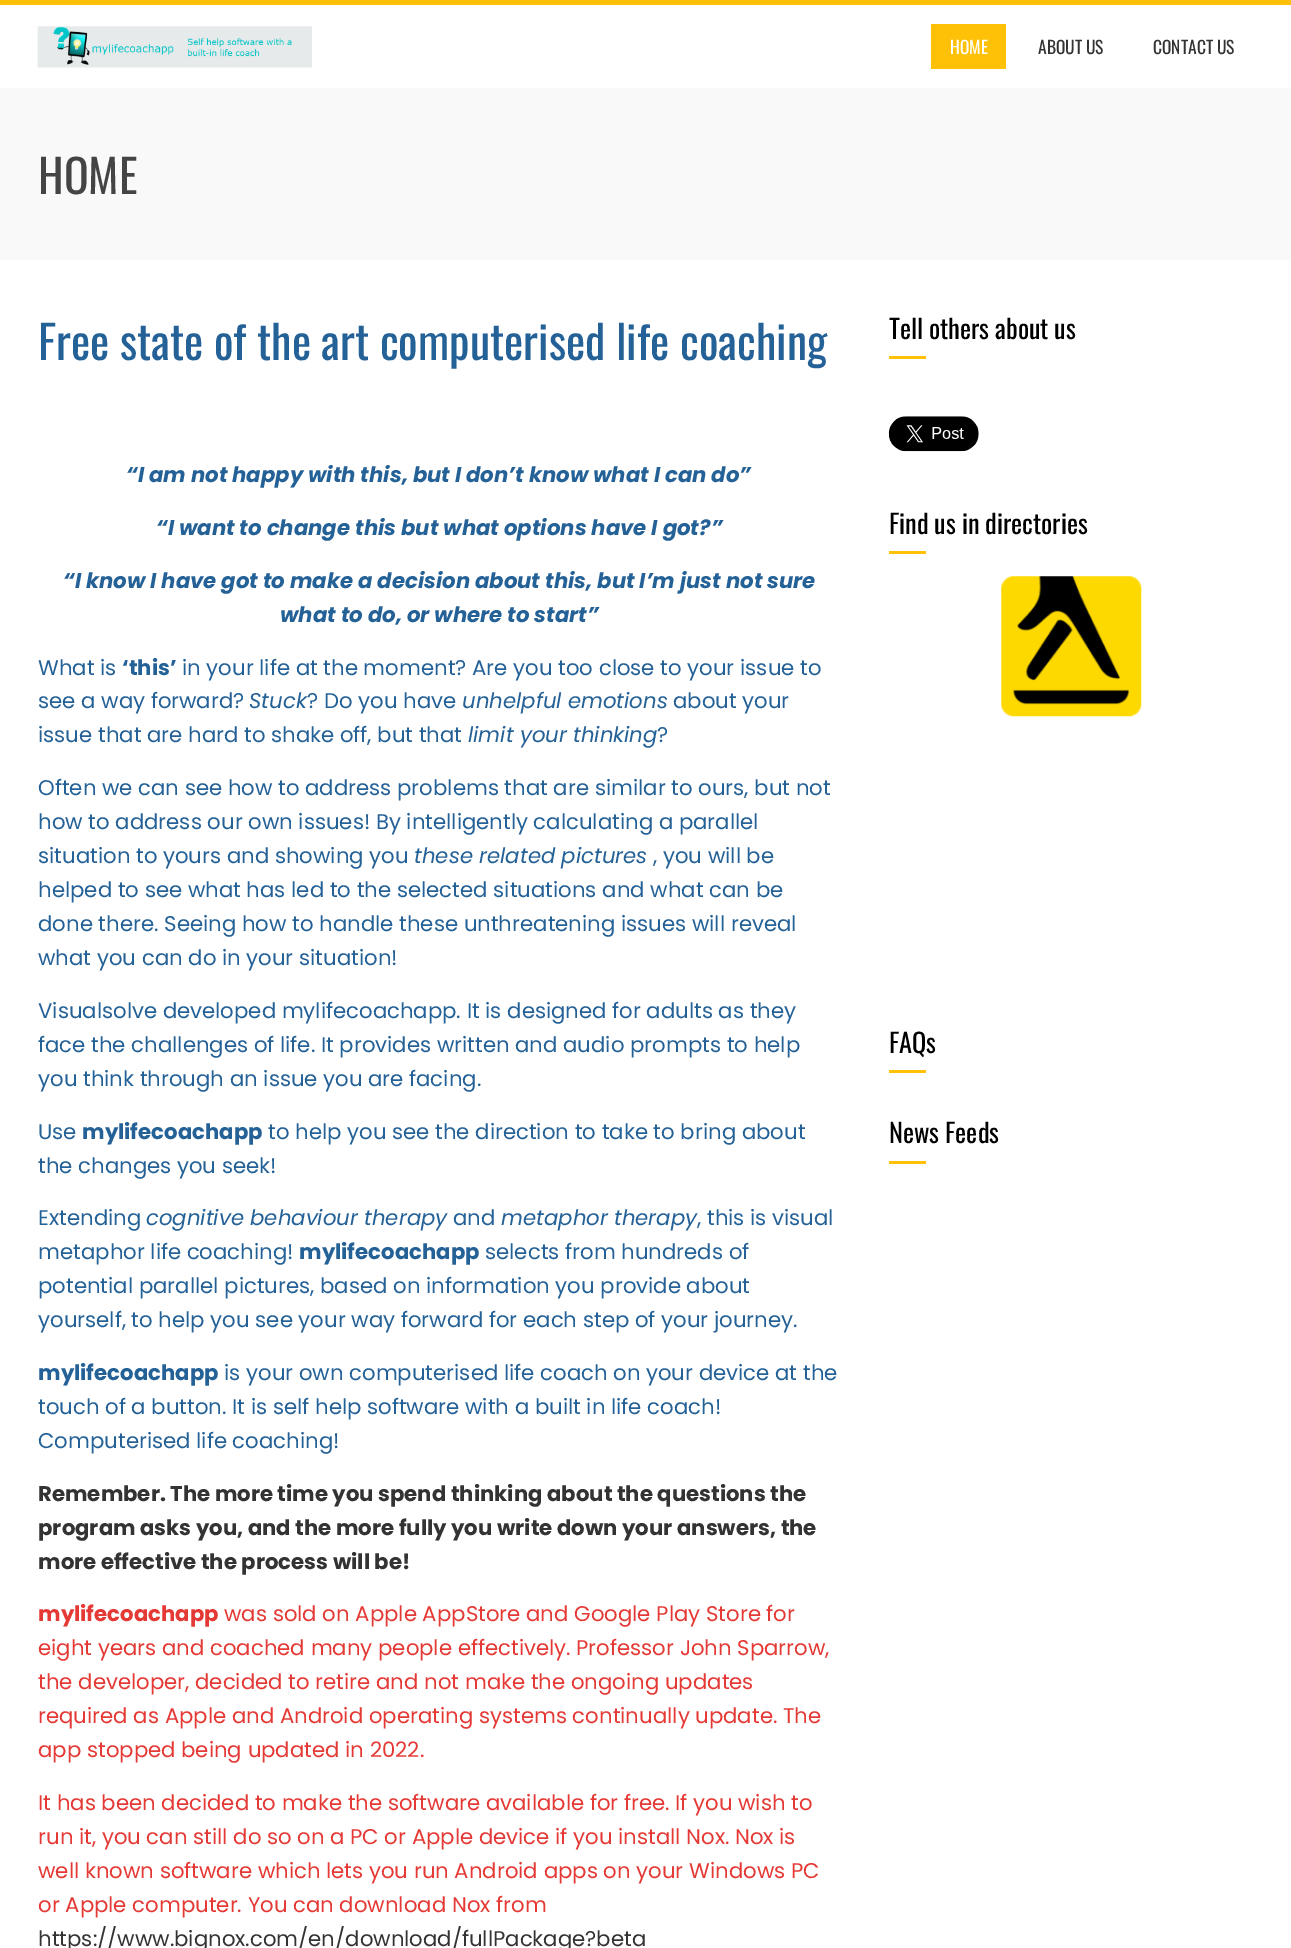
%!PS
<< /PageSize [1291 1948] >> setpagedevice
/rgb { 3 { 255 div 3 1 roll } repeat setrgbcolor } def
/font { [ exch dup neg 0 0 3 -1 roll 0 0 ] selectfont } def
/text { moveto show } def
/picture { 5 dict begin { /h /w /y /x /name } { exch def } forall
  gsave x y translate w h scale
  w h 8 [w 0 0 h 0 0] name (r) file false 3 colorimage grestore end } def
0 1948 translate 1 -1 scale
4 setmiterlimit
255 255 255 rgb
0 0 1291 1948 rectfill
255 193 7 rgb
0 0 1291 5 rectfill
(img_01.rgb) 37 26 275 42 picture
931 24 75 45 rectfill
249 249 249 rgb
0 88 1291 172 rectfill
255 193 7 rgb
889 356 37 3 rectfill
(img_02.rgb) 888 416 91 36 picture
889 551 37 3 rectfill
(img_03.rgb) 1001 576 141 141 picture
889 1070 37 3 rectfill
889 1161 37 3 rectfill
/Oswald-Regular 17.5 font
255 255 255 rgb
(HOME) 950 54 text
51 51 51 rgb
(ABOUT US) 1038 54 text
(CONTACT US) 1153 54 text
/Oswald-Regular 45.9 font
68 68 68 rgb
(HOME) 38 194 text
36 97 151 rgb
(Free state of the art computerised life coaching) 38 360 text
/Poppins-BoldItalic 21.25 font
(“I am not happy with this, but I don’t know what I can do”) 126 482 text
(“I want to change this but what options have I got?”) 156 535 text
(“I know I have got to make a decision about this, but I’m just not sure) 63 588 text
(what to do, or where to start”) 280 622 text
/Poppins-Regular 21.25 font
(What is) 38 675 text
/Poppins-Bold 21.25 font
(‘this’) 122 675 text
/Poppins-Regular 21.25 font
(in your life at the moment? Are you too close to your issue to) 182 675 text
(see a way forward?) 38 708 text
/Poppins-Italic 21.25 font
(Stuck) 249 708 text
/Poppins-Regular 21.25 font
(? Do you have) 307 708 text
/Poppins-Italic 21.25 font
(unhelpful emotions) 462 708 text
/Poppins-Regular 21.25 font
(about your) 673 708 text
(issue that are hard to shake off, but that) 38 742 text
/Poppins-Italic 21.25 font
(limit your thinking) 468 742 text
/Poppins-Regular 21.25 font
(?) 657 742 text
(Often we can see how to address problems that are similar to ours, but not) 38 795 text
(how to address our own issues! By intelligently calculating a parallel) 38 829 text
(situation to yours and showing you) 38 863 text
/Poppins-Italic 21.25 font
(these related pictures) 414 863 text
/Poppins-Regular 21.25 font
(, you will be) 653 863 text
(helped to see what has led to the selected situations and what can be) 38 897 text
(done there. Seeing how to handle these unthreatening issues will reveal) 38 931 text
(what you can do in your situation!) 38 965 text
(Visualsolve developed mylifecoachapp. It is designed for adults as they) 38 1018 text
(face the challenges of life. It provides written and audio prompts to help) 38 1052 text
(you think through an issue you are facing.) 38 1086 text
(Use) 38 1139 text
/Poppins-Bold 21.25 font
(mylifecoachapp) 82 1139 text
/Poppins-Regular 21.25 font
(to help you see the direction to take to bring about) 268 1139 text
(the changes you seek!) 38 1173 text
(Extending) 38 1225 text
/Poppins-Italic 21.25 font
(cognitive behaviour therapy) 146 1225 text
/Poppins-Regular 21.25 font
(and) 453 1225 text
/Poppins-Italic 21.25 font
(metaphor therapy) 501 1225 text
/Poppins-Regular 21.25 font
(, this is visual) 697 1225 text
(metaphor life coaching!) 38 1259 text
/Poppins-Bold 21.25 font
(mylifecoachapp) 299 1259 text
/Poppins-Regular 21.25 font
(selects from hundreds of) 485 1259 text
(potential parallel pictures, based on information you provide about) 38 1293 text
(yourself, to help you see your way forward for each step of your journey.) 38 1327 text
/Poppins-Bold 21.25 font
(mylifecoachapp) 38 1380 text
/Poppins-Regular 21.25 font
(is your own computerised life coach on your device at the) 224 1380 text
(touch of a button. It is self help software with a built in life coach!) 38 1414 text
(Computerised life coaching!) 38 1448 text
/Poppins-Bold 21.25 font
51 51 51 rgb
(Remember. The more time you spend thinking about the questions the) 38 1501 text
(program asks you, and the more fully you write down your answers, the) 38 1535 text
(more effective the process will be!) 38 1569 text
229 57 53 rgb
(mylifecoachapp) 38 1621 text
/Poppins-Regular 21.25 font
(was sold on Apple AppStore and Google Play Store for) 224 1621 text
(eight years and coached many people effectively. Professor John Sparrow,) 38 1655 text
(the developer, decided to retire and not make the ongoing updates) 38 1689 text
(required as Apple and Android operating systems continually update. The) 38 1723 text
(app stopped being updated in 2022.) 38 1757 text
(It has been decided to make the software available for free. If you wish to) 38 1810 text
(run it, you can still do so on a PC or Apple device if you install Nox. Nox is) 38 1844 text
(well known software which lets you run Android apps on your Windows PC) 38 1878 text
(or Apple computer. You can download Nox from) 38 1912 text
51 51 51 rgb
(https://www.bignox.com/en/download/fullPackage?beta) 38 1946 text
/Oswald-Regular 26.25 font
0 0 0 rgb
(Tell others about us) 889 339 text
(Find us in directories) 889 534 text
(FAQs) 889 1053 text
(News Feeds) 889 1143 text
showpage
